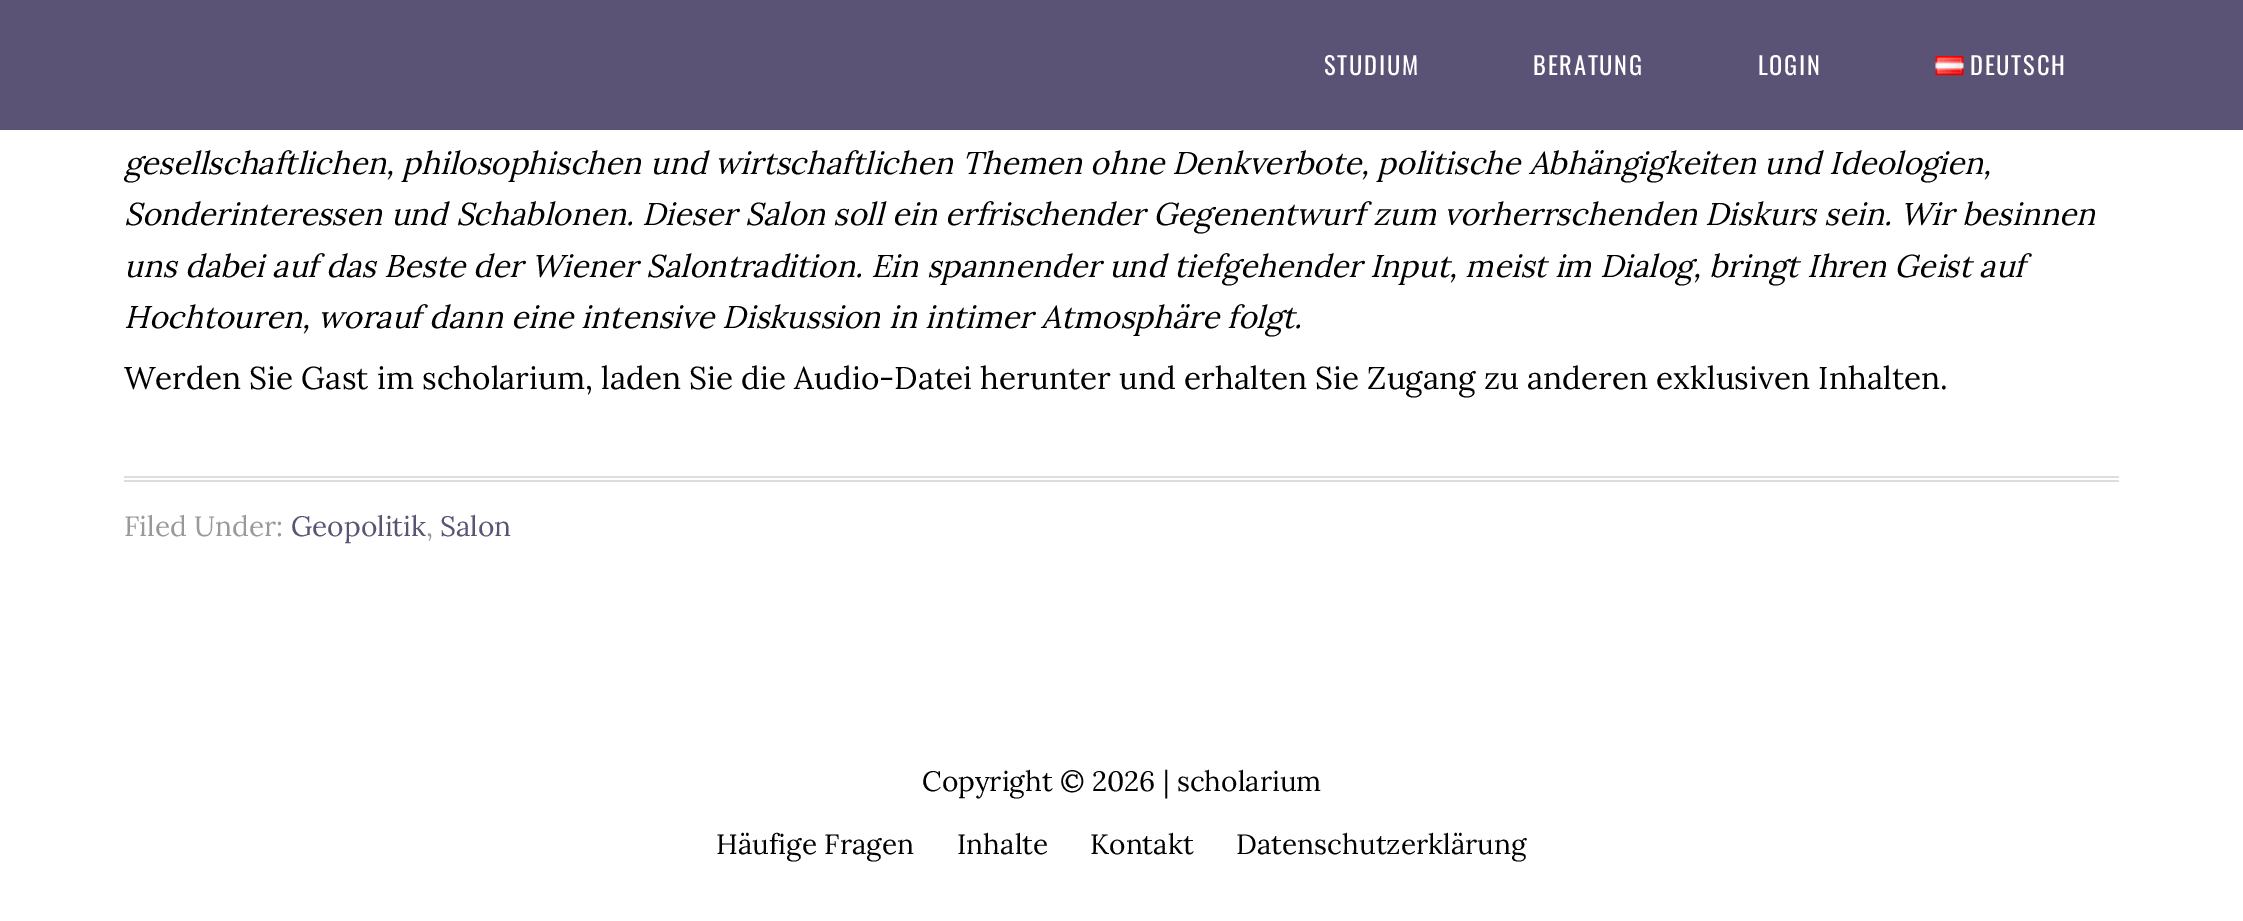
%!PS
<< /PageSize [2243 921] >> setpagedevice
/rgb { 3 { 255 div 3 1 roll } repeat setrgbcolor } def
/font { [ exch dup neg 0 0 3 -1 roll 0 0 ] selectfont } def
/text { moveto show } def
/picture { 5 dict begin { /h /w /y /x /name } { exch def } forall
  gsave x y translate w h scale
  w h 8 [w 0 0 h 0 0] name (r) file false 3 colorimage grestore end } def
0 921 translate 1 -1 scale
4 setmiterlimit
255 255 255 rgb
0 0 2243 921 rectfill
91 83 118 rgb
0 0 2243 130 rectfill
(img_01.rgb) 1935 56 29 20 picture
221 221 221 rgb
124 476 1995 2 rectfill
124 480 1995 2 rectfill
/Oswald-Regular 24.5 font
255 255 255 rgb
1324 75 moveto 1.75 0 (STUDIUM) ashow
1533 75 moveto 1.75 0 (BERATUNG) ashow
1758 75 moveto 1.75 0 (LOGIN) ashow
1970 75 moveto 1.75 0 (DEUTSCH) ashow
/Lora-Italic 31.5 font
0 0 0 rgb
(gesellschaftlichen, philosophischen und wirtschaftlichen Themen ohne Denkverbote, politische Abhängigkeiten und Ideologien,) 124 174 text
(Sonderinteressen und Schablonen. Dieser Salon soll ein erfrischender Gegenentwurf zum vorherrschenden Diskurs sein. Wir besinnen) 124 225 text
(uns dabei auf das Beste der Wiener Salontradition. Ein spannender und tiefgehender Input, meist im Dialog, bringt Ihren Geist auf) 124 277 text
(Hochtouren, worauf dann eine intensive Diskussion in intimer Atmosphäre folgt.) 124 328 text
/Lora-Regular 31.5 font
(Werden Sie Gast im scholarium, laden Sie die Audio-Datei herunter und erhalten Sie Zugang zu anderen exklusiven Inhalten.) 124 389 text
/Lora-Regular 28 font
153 153 153 rgb
(Filed Under:) 124 536 text
91 83 118 rgb
(Geopolitik) 291 536 text
153 153 153 rgb
(,) 426 536 text
91 83 118 rgb
(Salon) 440 536 text
0 0 0 rgb
(Copyright © 2026 | scholarium) 922 791 text
(Häufige Fragen) 716 854 text
(Inhalte) 957 854 text
(Kontakt) 1090 854 text
(Datenschutzerklärung) 1236 854 text
showpage
